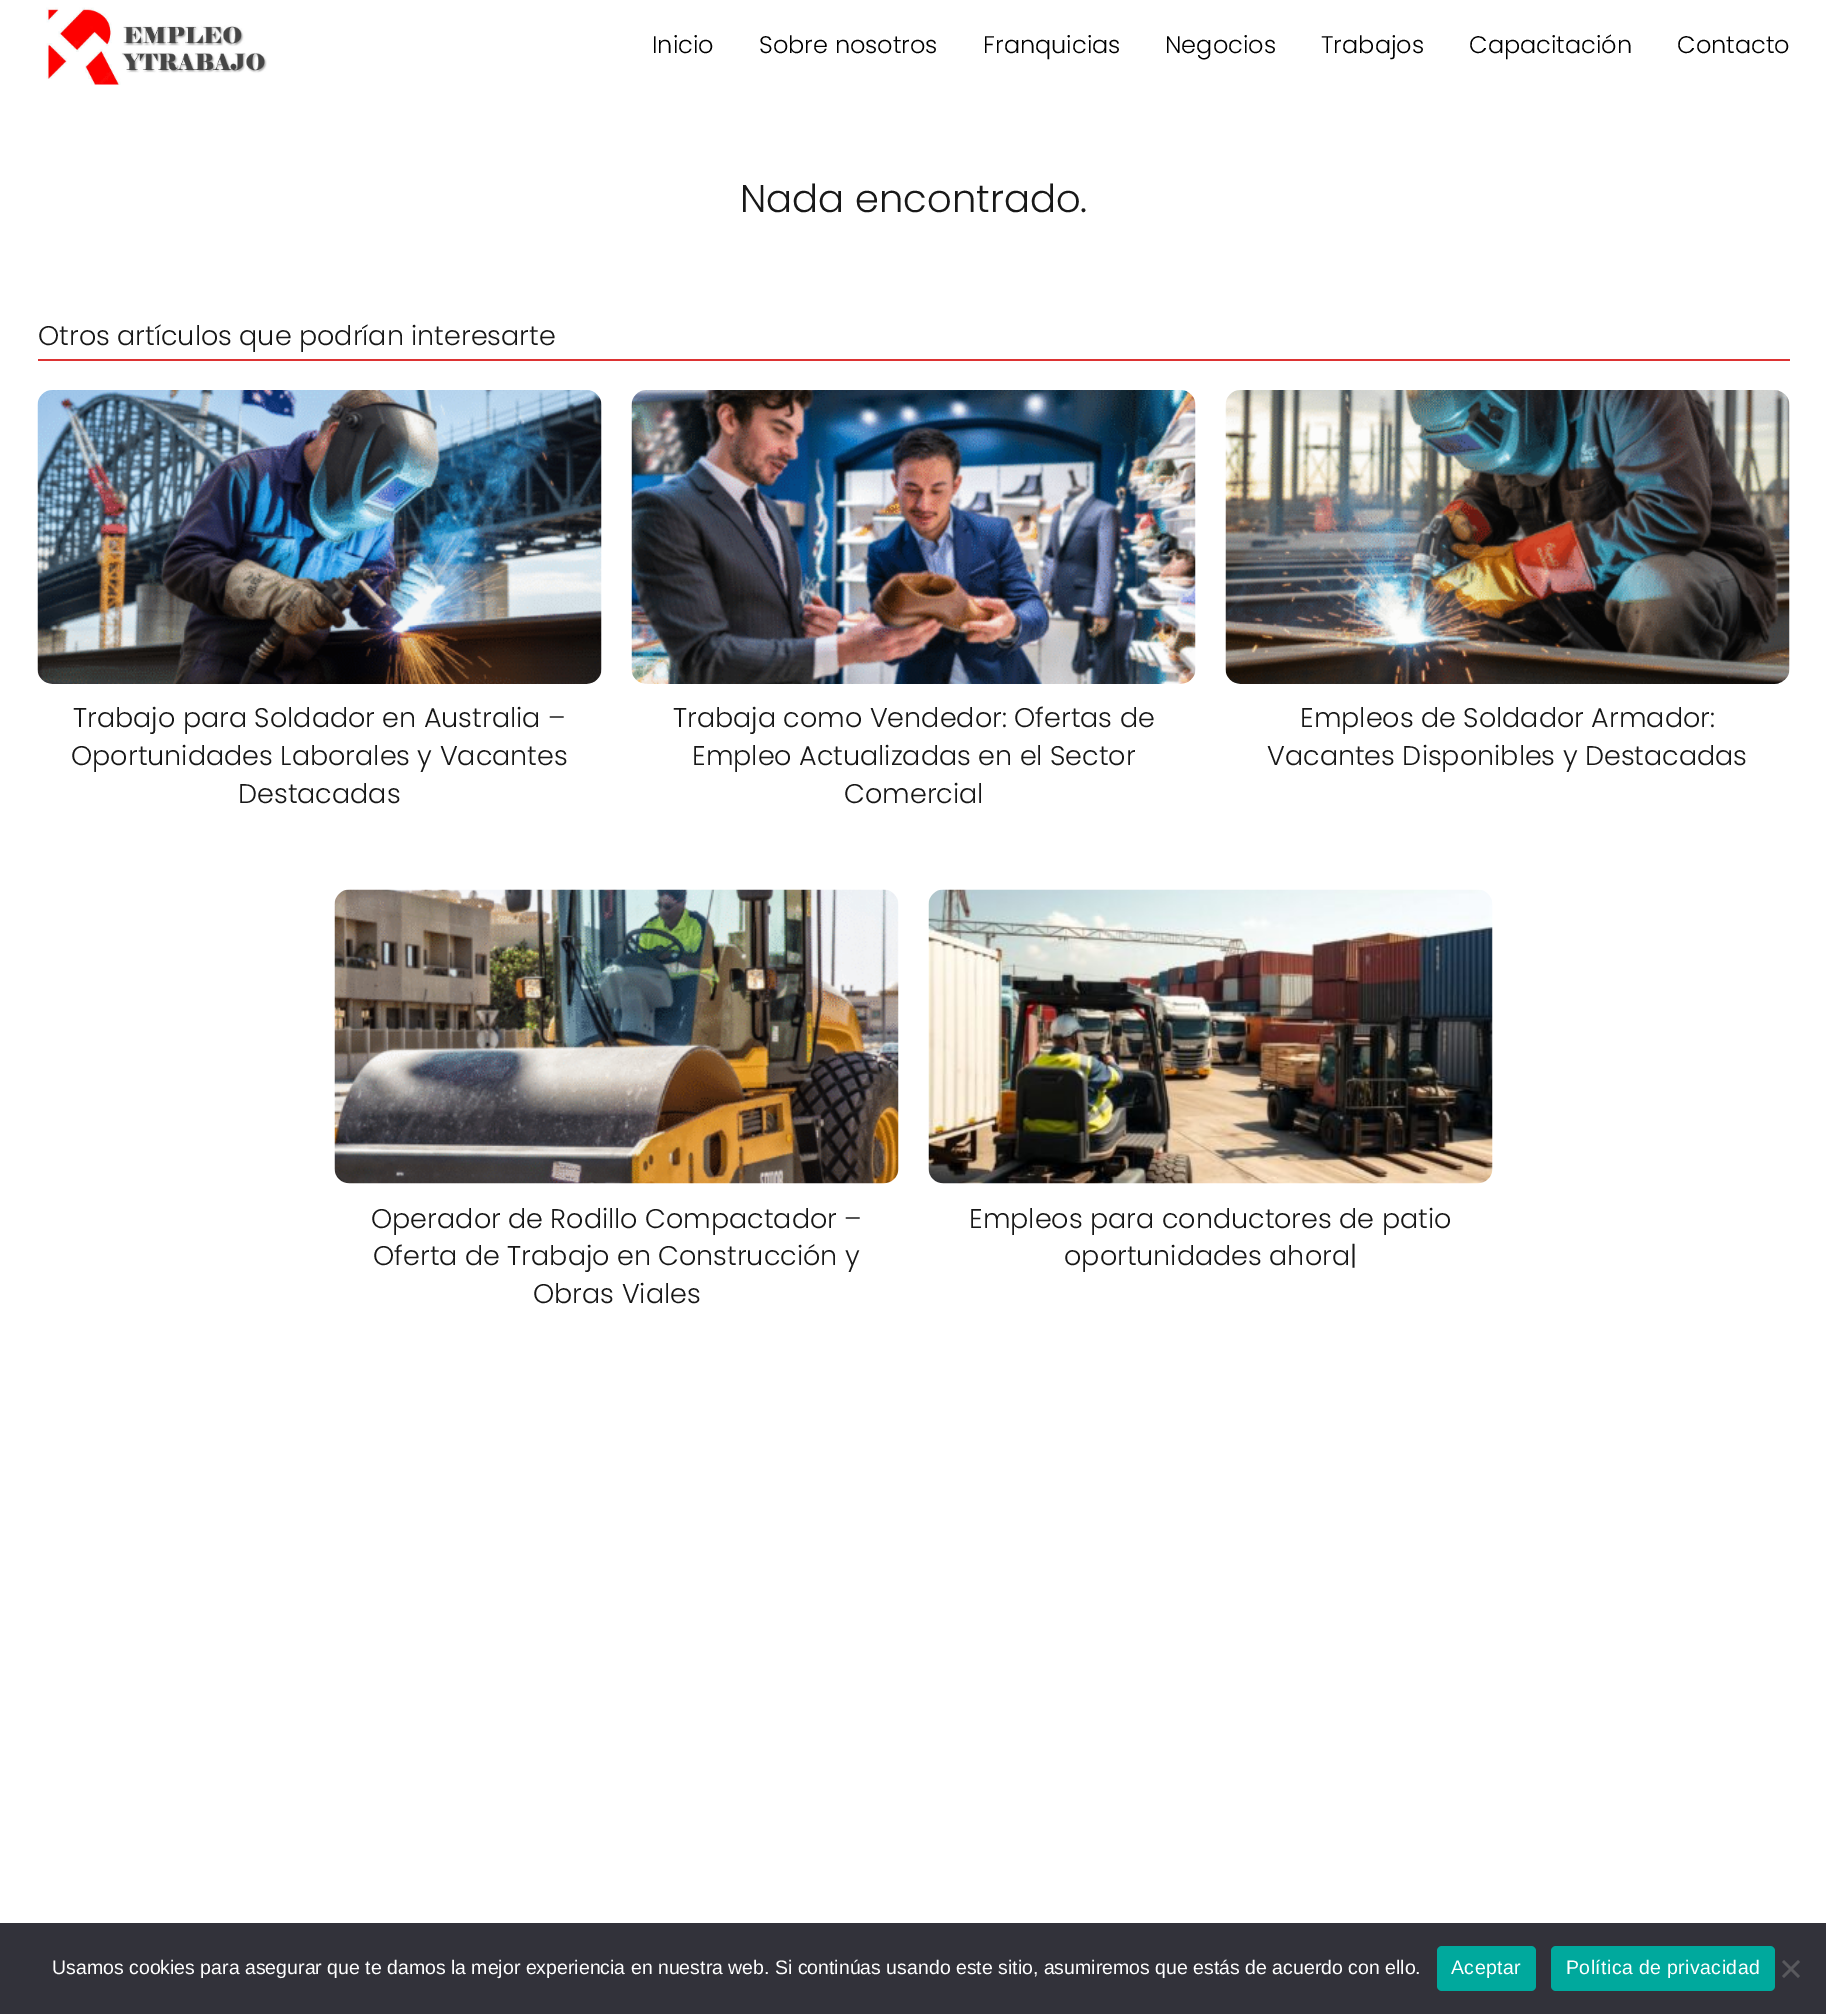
%!PS
<< /PageSize [1826 2014] >> setpagedevice
/rgb { 3 { 255 div 3 1 roll } repeat setrgbcolor } def
/font { [ exch dup neg 0 0 3 -1 roll 0 0 ] selectfont } def
/text { moveto show } def
/roundrect { 5 dict begin { /r /h /w /y /x } { exch def } forall
  x r add y moveto x w add y 2 copy h add r arct x w add y h add x 1 index r arct
  x y h add x y r arct x y 2 copy exch w add exch r arct closepath end } def
/picture { 5 dict begin { /h /w /y /x /name } { exch def } forall
  gsave x y translate w h scale
  w h 8 [w 0 0 h 0 0] name (r) file false 3 colorimage grestore end } def
0 2014 translate 1 -1 scale
4 setmiterlimit
255 255 255 rgb
0 0 1826 2014 rectfill
(img_01.rgb) 46 7 221 78 picture
221 51 51 rgb
38 359 1752 2 rectfill
(img_02.rgb) 37 390 565 294 picture
(img_03.rgb) 631 390 565 294 picture
(img_04.rgb) 1225 390 565 294 picture
(img_05.rgb) 334 889 565 295 picture
(img_06.rgb) 928 889 565 295 picture
50 50 58 rgb
0 1923 1826 91 rectfill
0 169 157 rgb
1437 1946 99 45 5 roundrect fill
1551 1946 224 45 5 roundrect fill
89 89 93 rgb
1798 1960 moveto 2 2 rlineto -16 16 rlineto -2 -2 rlineto closepath fill
1782 1962 moveto 2 -2 rlineto 16 16 rlineto -2 2 rlineto closepath fill
/Poppins-Light 24 font
0 0 0 rgb
(Inicio) 652 53 text
(Sobre nosotros) 759 53 text
(Franquicias) 983 53 text
(Negocios) 1165 53 text
(Trabajos) 1321 53 text
(Capacitación) 1469 53 text
(Contacto) 1677 53 text
/Poppins-Light 38.5 font
24 24 24 rgb
(Nada encontrado.) 740 212 text
/Poppins-Light 27 font
(Otros artículos que podrían interesarte) 38 345 text
(Trabajo para Soldador en Australia –) 73 727 text
(Oportunidades Laborales y Vacantes) 71 765 text
(Destacadas) 238 803 text
(Trabaja como Vendedor: Ofertas de) 673 727 text
(Empleo Actualizadas en el Sector) 692 765 text
(Comercial) 844 803 text
(Empleos de Soldador Armador:) 1300 727 text
(Vacantes Disponibles y Destacadas) 1267 765 text
(Operador de Rodillo Compactador –) 371 1228 text
(Oferta de Trabajo en Construcción y) 373 1265 text
(Obras Viales) 533 1303 text
(Empleos para conductores de patio) 969 1228 text
(oportunidades ahora|) 1064 1265 text
/LiberationSans-Regular 19.5 font
255 255 255 rgb
(Usamos cookies para asegurar que te damos la mejor experiencia en nuestra web. Si continúas usando este sitio, asumiremos que estás de acuerdo con ello.) 52 1974 text
1451 1974 moveto 0.4 0 (Aceptar) ashow
1566 1974 moveto 0.4 0 (Política de privacidad) ashow
showpage
